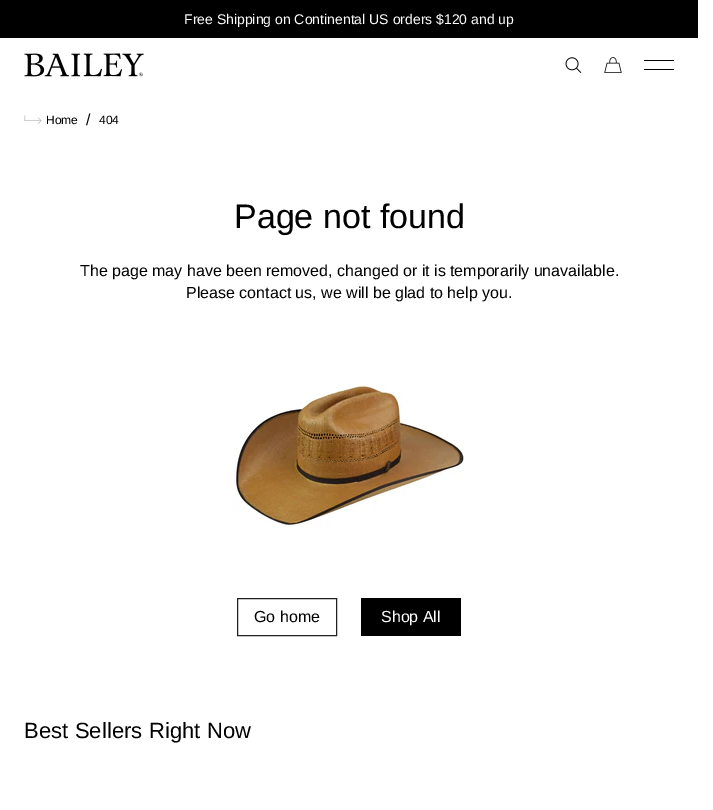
%!PS
<< /PageSize [713 810] >> setpagedevice
/rgb { 3 { 255 div 3 1 roll } repeat setrgbcolor } def
/font { [ exch dup neg 0 0 3 -1 roll 0 0 ] selectfont } def
/text { moveto show } def
/picture { 5 dict begin { /h /w /y /x /name } { exch def } forall
  gsave x y translate w h scale
  w h 8 [w 0 0 h 0 0] name (r) file false 3 colorimage grestore end } def
0 810 translate 1 -1 scale
4 setmiterlimit
255 255 255 rgb
0 0 713 810 rectfill
0 0 0 rgb
0 0 698 38 rectfill
(img_01.rgb) 24 53 120 24 picture
(img_02.rgb) 565 57 17 16 picture
(img_03.rgb) 604 57 18 16 picture
644 60 30 1 rectfill
644 69 30 1 rectfill
(img_04.rgb) 24 115 18 9 picture
(img_05.rgb) 234 385 230 143 picture
33 33 37 rgb
237.5 598.5 99 37 rectstroke
0 0 0 rgb
361 598 100 38 rectfill
/LiberationSans-Regular 14 font
255 255 255 rgb
(Free Shipping on Continental US orders $120 and up) 184 24 text
/LiberationSans-Regular 12 font
0 0 0 rgb
(Home) 46 124 text
/LiberationSans-Regular 16 font
(/) 86 125 text
/LiberationSans-Regular 12 font
(404) 99 124 text
/LiberationSans-Regular 34 font
(Page not found) 234 228 text
/LiberationSans-Regular 16 font
(The page may have been removed, changed or it is temporarily unavailable.) 80 276 text
(Please contact us, we will be glad to help you.) 186 298 text
(Go home) 254 622 text
255 255 255 rgb
(Shop All) 381 622 text
/LiberationSans-Regular 22 font
0 0 0 rgb
24 738 moveto 0.1 0 (Best Sellers Right Now) ashow
showpage
